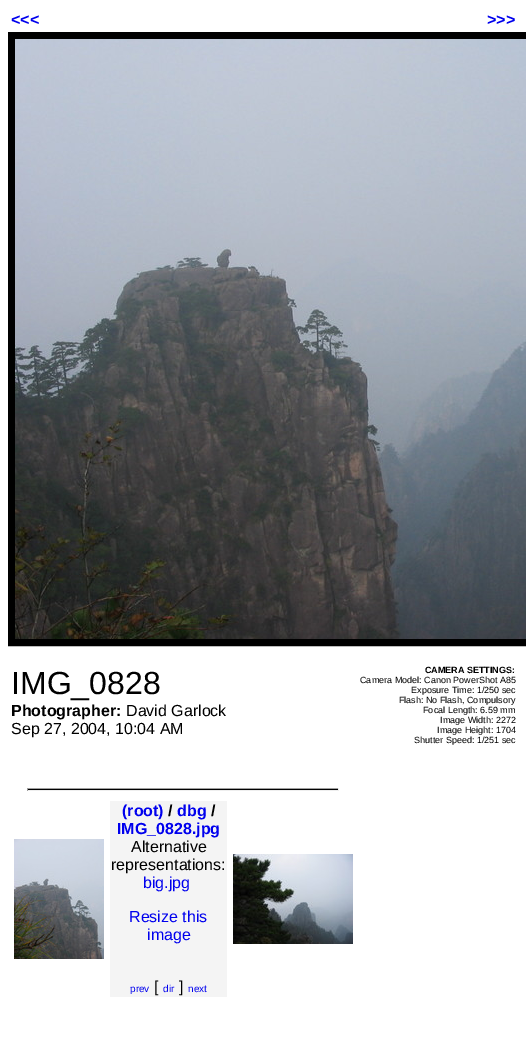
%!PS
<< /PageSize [526 1043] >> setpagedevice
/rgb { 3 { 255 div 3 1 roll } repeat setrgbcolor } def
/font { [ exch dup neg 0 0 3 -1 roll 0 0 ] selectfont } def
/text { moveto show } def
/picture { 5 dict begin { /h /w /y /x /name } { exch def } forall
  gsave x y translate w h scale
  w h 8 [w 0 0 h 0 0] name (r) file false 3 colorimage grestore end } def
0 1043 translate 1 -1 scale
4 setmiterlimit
255 255 255 rgb
0 0 526 1043 rectfill
0 0 0 rgb
7 setlinewidth
11.5 35.5 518 607 rectstroke
(img_01.rgb) 15 39 511 600 picture
27 789 312 1 rectfill
159 159 159 rgb
27 788 312 1 rectfill
238 238 238 rgb
338 788 1 3 rectfill
27 790 312 1 rectfill
159 159 159 rgb
27 788 1 3 rectfill
(img_02.rgb) 14 839 90 120 picture
244 244 244 rgb
110 801 117 196 rectfill
(img_03.rgb) 233 854 120 90 picture
/LiberationSans-Bold 16 font
0 0 238 rgb
(<<<) 11 25 text
(>>>) 487 25 text
/LiberationSans-Regular 32 font
0 0 0 rgb
(IMG_0828) 11 694 text
/LiberationSans-Bold 16 font
(Photographer:) 11 716 text
/LiberationSans-Regular 16 font
(David Garlock) 126 716 text
(Sep 27, 2004, 10:04 AM) 11 734 text
/LiberationSans-Bold 16 font
0 0 238 rgb
(\(root\)) 122 816 text
0 0 0 rgb
(/) 168 816 text
0 0 238 rgb
(dbg) 177 816 text
0 0 0 rgb
(/) 211 816 text
0 0 238 rgb
(IMG_0828.jpg) 117 834 text
/LiberationSans-Regular 16 font
0 0 0 rgb
(Alternative) 131 852 text
(representations:) 111 870 text
0 0 238 rgb
(big.jpg) 143 888 text
(Resize this) 129 922 text
(image) 147 940 text
/LiberationSans-Regular 10 font
(prev) 130 992 text
/LiberationSans-Regular 16 font
0 0 0 rgb
([) 154 992 text
/LiberationSans-Regular 10 font
0 0 238 rgb
(dir) 163 992 text
/LiberationSans-Regular 16 font
0 0 0 rgb
(]) 179 992 text
/LiberationSans-Regular 10 font
0 0 238 rgb
(next) 188 992 text
/LiberationSans-Bold 9 font
0 0 0 rgb
(CAMERA SETTINGS:) 425 673 text
/LiberationSans-Regular 9 font
(Camera Model: Canon PowerShot A85) 360 683 text
(Exposure Time: 1/250 sec) 411 693 text
(Flash: No Flash, Compulsory) 399 703 text
(Focal Length: 6.59 mm) 423 713 text
(Image Width: 2272) 440 723 text
(Image Height: 1704) 437 733 text
(Shutter Speed: 1/251 sec) 414 743 text
showpage
